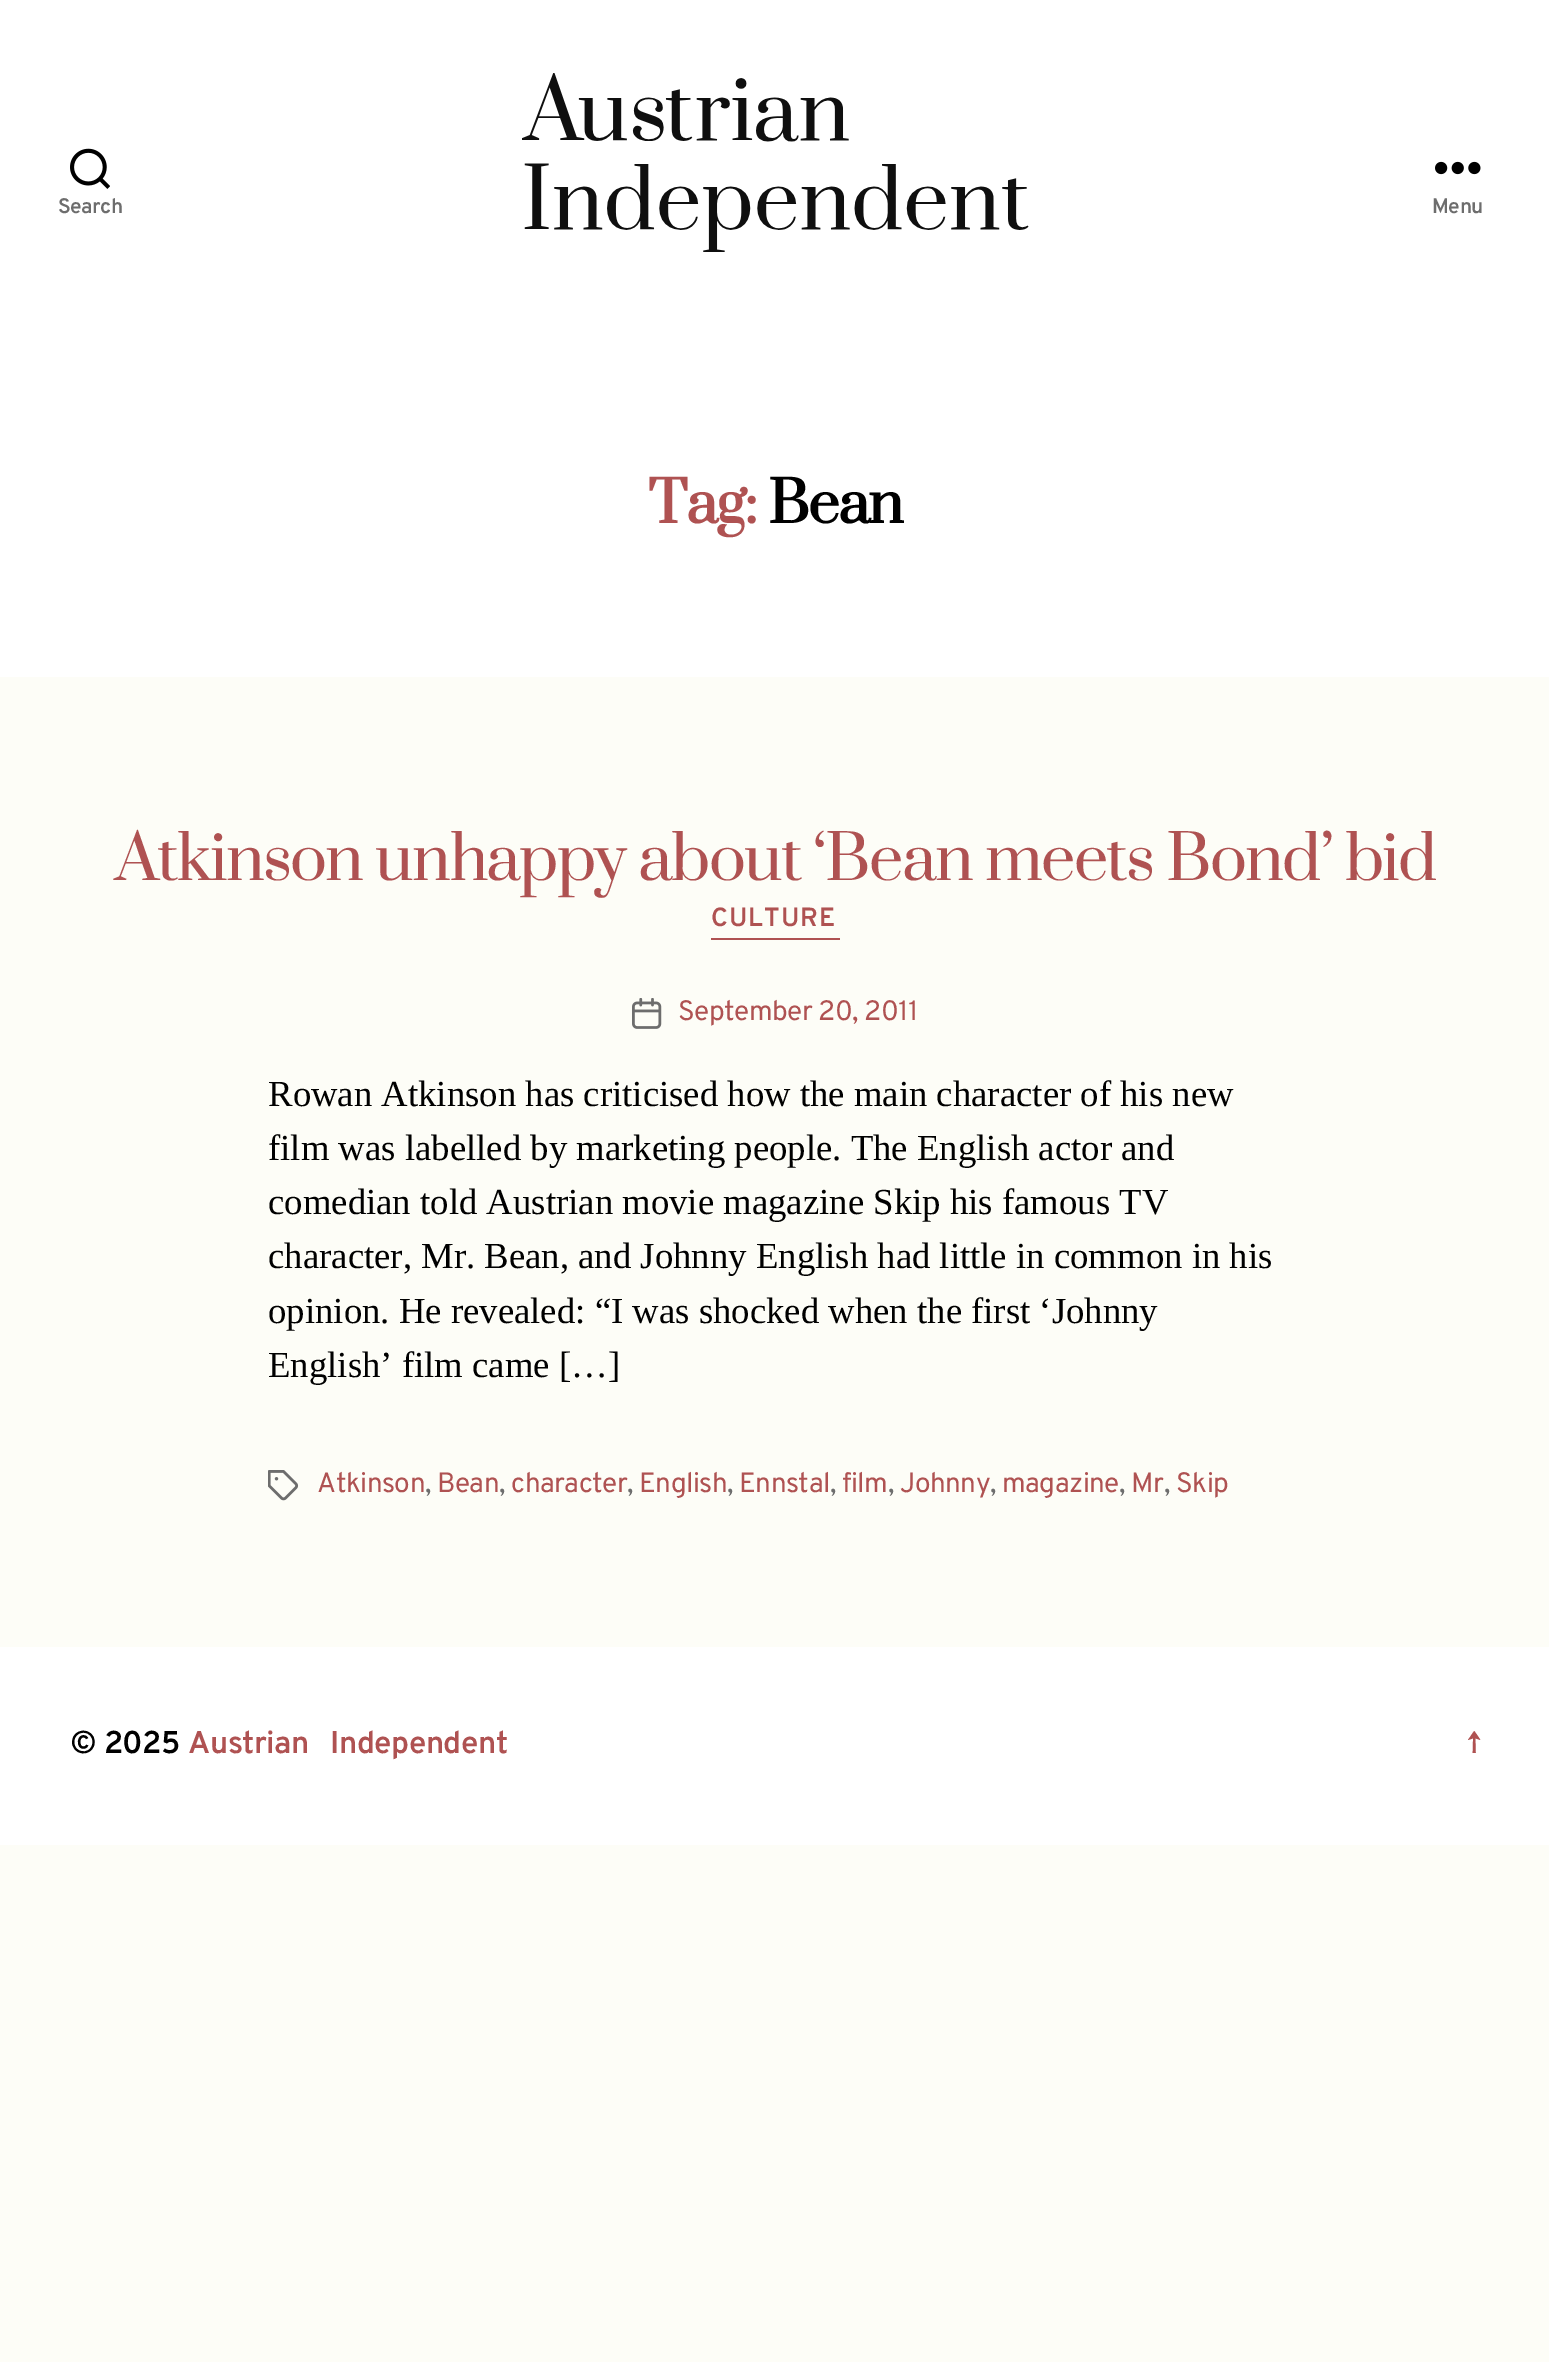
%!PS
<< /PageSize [1549 2362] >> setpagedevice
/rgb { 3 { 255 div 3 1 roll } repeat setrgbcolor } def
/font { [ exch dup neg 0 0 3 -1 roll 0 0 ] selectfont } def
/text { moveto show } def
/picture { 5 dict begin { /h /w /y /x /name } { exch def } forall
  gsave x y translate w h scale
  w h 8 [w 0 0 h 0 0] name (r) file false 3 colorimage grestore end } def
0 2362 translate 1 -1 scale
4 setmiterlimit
253 253 247 rgb
0 0 1549 2362 rectfill
255 255 255 rgb
0 0 1549 677 rectfill
(img_01.rgb) 70 148 40 41 picture
(img_02.rgb) 522 73 507 179 picture
(img_03.rgb) 1435 161 46 14 picture
175 82 82 rgb
711 938 129 2 rectfill
(img_04.rgb) 632 998 30 31 picture
(img_05.rgb) 268 1470 31 31 picture
255 255 255 rgb
0 1647 1549 198 rectfill
/Overpass-SemiBold 21 font
109 109 109 rgb
58 213 moveto -0.5 0 (Search) ashow
1432 213 moveto -0.5 0 (Menu) ashow
/Prata-Bold 56 font
175 82 82 rgb
648 523 moveto -1.5 0 (Tag:) ashow
0 0 0 rgb
768 523 moveto -1.5 0 (Bean) ashow
/Prata-Regular 61.25 font
175 82 82 rgb
115 880 moveto -1.75 0 (Atkinson unhappy about ‘Bean meets Bond’ bid) ashow
/Overpass-SemiBold 26.25 font
711 926 moveto 1 0 (CULTURE) ashow
/Overpass-Regular 28 font
678 1020 moveto -0.5 0 (September 20, 2011) ashow
/LiberationSerif-Regular 36.75 font
0 0 0 rgb
(Rowan Atkinson has criticised how the main character of his new) 268 1106 text
(film was labelled by marketing people. The English actor and) 268 1160 text
(comedian told Austrian movie magazine Skip his famous TV) 268 1214 text
(character, Mr. Bean, and Johnny English had little in common in his) 268 1268 text
(opinion. He revealed: “I was shocked when the first ‘Johnny) 268 1323 text
(English’ film came […]) 268 1377 text
/Overpass-Regular 28 font
175 82 82 rgb
317 1492 moveto -0.5 0 (Atkinson) ashow
109 109 109 rgb
425 1492 moveto -0.5 0 (,) ashow
175 82 82 rgb
437 1492 moveto -0.5 0 (Bean) ashow
109 109 109 rgb
499 1492 moveto -0.5 0 (,) ashow
175 82 82 rgb
511 1492 moveto -0.5 0 (character) ashow
109 109 109 rgb
627 1492 moveto -0.5 0 (,) ashow
175 82 82 rgb
639 1492 moveto -0.5 0 (English) ashow
109 109 109 rgb
727 1492 moveto -0.5 0 (,) ashow
175 82 82 rgb
739 1492 moveto -0.5 0 (Ennstal) ashow
109 109 109 rgb
830 1492 moveto -0.5 0 (,) ashow
175 82 82 rgb
842 1492 moveto -0.5 0 (film) ashow
109 109 109 rgb
888 1492 moveto -0.5 0 (,) ashow
175 82 82 rgb
900 1492 moveto -0.5 0 (Johnny) ashow
109 109 109 rgb
990 1492 moveto -0.5 0 (,) ashow
175 82 82 rgb
1002 1492 moveto -0.5 0 (magazine) ashow
109 109 109 rgb
1119 1492 moveto -0.5 0 (,) ashow
175 82 82 rgb
1131 1492 moveto -0.5 0 (Mr) ashow
109 109 109 rgb
1164 1492 moveto -0.5 0 (,) ashow
175 82 82 rgb
1176 1492 moveto -0.5 0 (Skip) ashow
/Overpass-SemiBold 31.5 font
0 0 0 rgb
70 1753 moveto -0.5 0 (© 2025) ashow
175 82 82 rgb
188 1753 moveto 14 0 32 -0.5 0 (Austrian Independent) awidthshow
/Overpass-Regular 31.5 font
1467 1753 moveto -0.5 0 (↑) ashow
showpage
